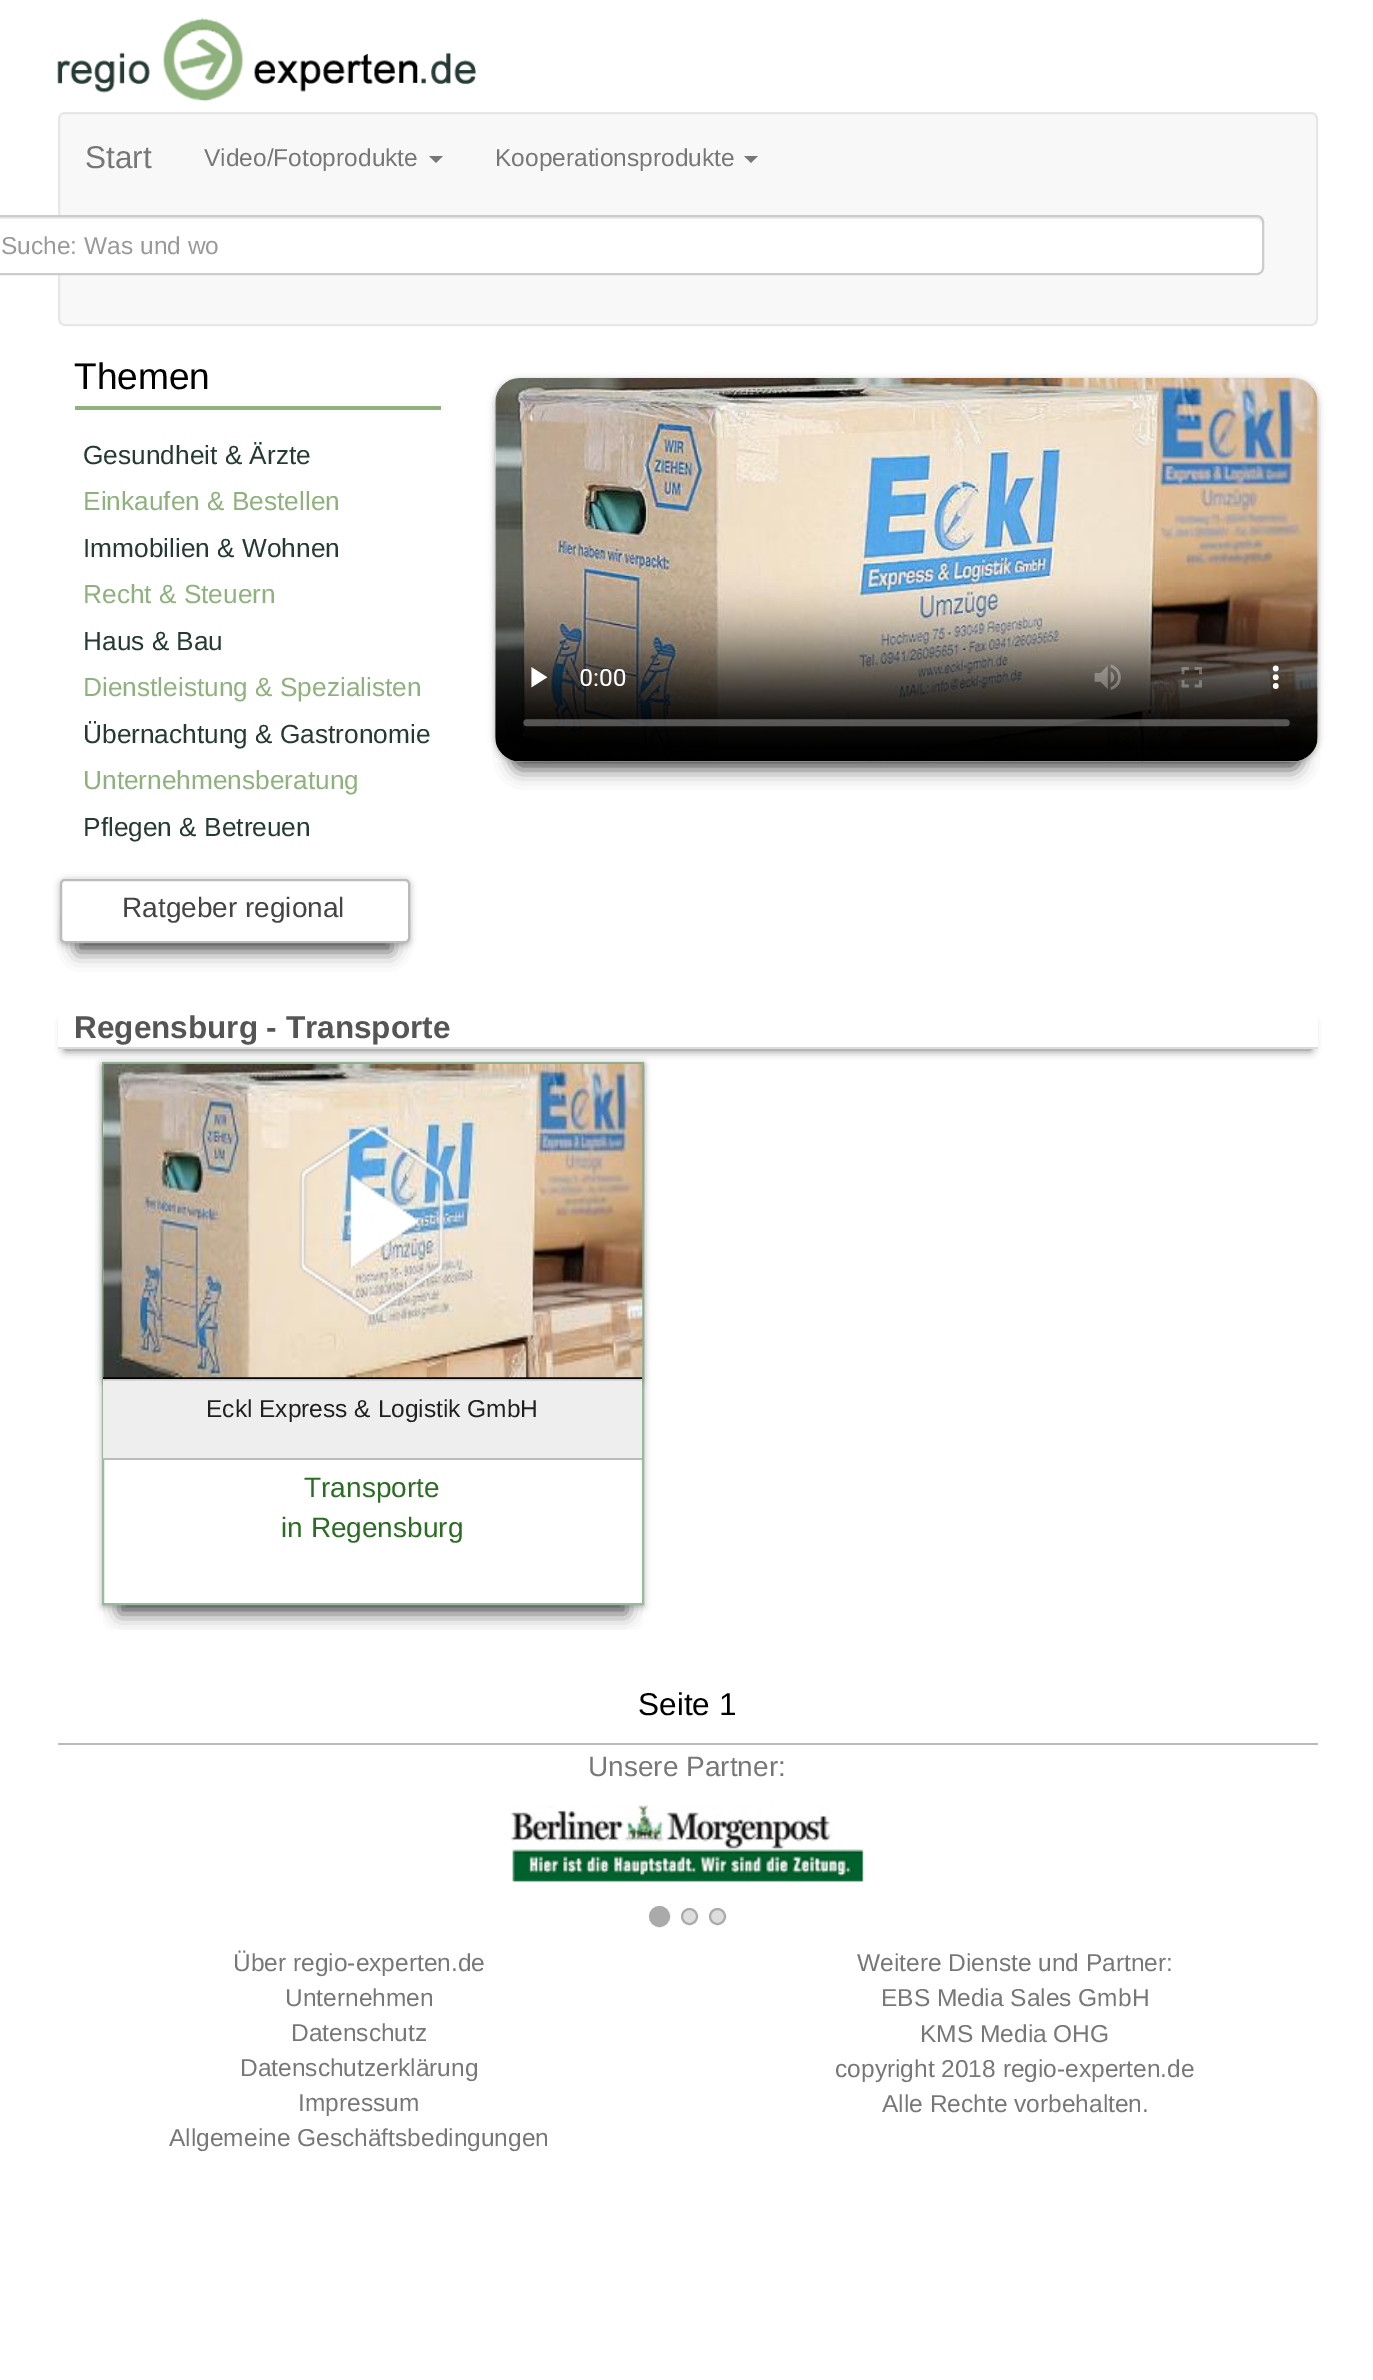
%!PS
<< /PageSize [1373 2380] /PageUsesTransparency true >> setpagedevice
/rgb { 3 { 255 div 3 1 roll } repeat setrgbcolor } def
/font { [ exch dup neg 0 0 3 -1 roll 0 0 ] selectfont } def
/text { moveto show } def
/alpha { dup .setfillconstantalpha .setstrokeconstantalpha } def
/circle { newpath 0 360 arc closepath } def
/roundrect { 5 dict begin { /r /h /w /y /x } { exch def } forall
  x r add y moveto x w add y 2 copy h add r arct x w add y h add x 1 index r arct
  x y h add x y r arct x y 2 copy exch w add exch r arct closepath end } def
/shadow { 12 dict begin { /a /b /q /h /w /y /x } { exch def } forall gsave /was 0 def
  9 -2 -9 { dup b mul 4 div /e exch def 1 sub .425 mul 2.718 exch exp 1 add a .99 .min exch div /now exch def
    1 1 now sub 1 was sub div sub alpha /was now def
    w h .min e 2 mul add 0 gt { x e sub y e sub w e 2 mul add h e 2 mul add
      q e add b .6 mul add w h .min 2 div e add .min 0 .max roundrect fill } if } for grestore end } def
/picture { 5 dict begin { /h /w /y /x /name } { exch def } forall
  gsave x y translate w h scale
  w h 8 [w 0 0 h 0 0] name (r) file false 3 colorimage grestore end } def
0 .pushpdf14devicefilter
0 2380 translate 1 -1 scale
4 setmiterlimit
255 255 255 rgb
0 0 1373 2380 rectfill
(img_01.rgb) 57 18 419 84 picture
248 248 248 rgb
59 113 1258 212 6 roundrect gsave fill grestore
231 231 231 rgb
2 setlinewidth
stroke
119 119 119 rgb
429 156 moveto 14 0 rlineto -7 7 rlineto closepath fill
744 156 moveto 14 0 rlineto -7 7 rlineto closepath fill
255 255 255 rgb
-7 215 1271 60 7 roundrect fill
236 236 236 rgb
-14 219 moveto 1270 0 rlineto 3 0 6 2 6 5 rcurveto 0 -2 rlineto 0 -3 -2 -5 -5 -5 rcurveto -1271 0 rlineto -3 0 -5 2 -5 5 rcurveto 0 2 rlineto 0 -3 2 -5 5 -5 rcurveto closepath fill
204 204 204 rgb
-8 216 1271 58 6 roundrect stroke
143 177 125 rgb
75 406 366 4 rectfill
0 0 0 rgb
60 880 350 65 5 3.5 0.3 shadow
77 922 315 30 0 9 0.6 shadow
255 255 255 rgb
61 880 348 62 4 roundrect gsave fill grestore
187 187 187 rgb
stroke
0 0 0 rgb
495 380 823 383 25 3.5 0.3 shadow
513 422 787 348 7 9 0.6 shadow
(img_02.rgb) 495 378 823 384 picture
gsave
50 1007 moveto 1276 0 rlineto 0 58 rlineto -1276 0 rlineto closepath 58 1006 moveto 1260 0 rlineto 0 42 rlineto -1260 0 rlineto closepath eoclip newpath
65 1022 1246 28 0 4.5 0.6 shadow
grestore
221 221 221 rgb
58 1047 1260 2 rectfill
gsave
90 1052 moveto 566 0 rlineto 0 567 rlineto -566 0 rlineto closepath 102 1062 moveto 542 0 rlineto 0 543 rlineto -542 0 rlineto closepath eoclip newpath
0 0 0 rgb
102 1064 542 543 0 3.5 0.3 shadow
grestore
gsave
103 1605 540 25 rectclip
0 0 0 rgb
119 1106 508 508 0 9 0.6 shadow
grestore
153 187 153 rgb
103 1063 540 541 rectstroke
255 255 255 rgb
103 1064 1 317 rectfill
0 0 0 rgb
103 1066 539 315 0 3.5 0.3 shadow
103 1377 539 2 rectfill
(img_03.rgb) 103 1064 540 314 picture
238 238 238 rgb
103 1381 539 77 rectfill
187 187 187 rgb
103 1458 539 2 rectfill
58 1743 1260 2 1 roundrect fill
(img_04.rgb) 510 1805 354 78 picture
170 170 170 rgb
659.5 1916.5 9.5 circle gsave fill grestore
stroke
221 221 221 rgb
689.5 1916.5 7.5 circle gsave fill grestore
170 170 170 rgb
stroke
221 221 221 rgb
717.5 1916.5 7.5 circle gsave fill grestore
170 170 170 rgb
stroke
/LiberationSans-Regular 31.5 font
119 119 119 rgb
(Start) 85 168 text
/LiberationSans-Regular 24.5 font
(Video/Fotoprodukte) 204 166 text
(Kooperationsprodukte) 495 166 text
153 153 153 rgb
(Suche: Was und wo) 1 254 text
/LiberationSans-Regular 37 font
0 0 0 rgb
(Themen) 74 389 text
/LiberationSans-Regular 26.25 font
38 58 53 rgb
(Gesundheit & Ärzte) 83 464 text
143 177 125 rgb
(Einkaufen & Bestellen) 83 510 text
38 58 53 rgb
(Immobilien & Wohnen) 83 557 text
143 177 125 rgb
(Recht & Steuern) 83 603 text
38 58 53 rgb
(Haus & Bau) 83 650 text
143 177 125 rgb
(Dienstleistung & Spezialisten) 83 696 text
38 58 53 rgb
(Übernachtung & Gastronomie) 83 743 text
143 177 125 rgb
(Unternehmensberatung) 83 789 text
38 58 53 rgb
(Pflegen & Betreuen) 83 836 text
/LiberationSans-Regular 28 font
68 68 68 rgb
(Ratgeber regional) 122 917 text
/LiberationSans-Bold 31.5 font
85 85 85 rgb
(Regensburg - Transporte) 74 1038 text
/LiberationSans-Regular 24.5 font
32 32 32 rgb
(Eckl Express & Logistik GmbH) 206 1417 text
/LiberationSans-Regular 28 font
41 109 34 rgb
(Transporte) 304 1497 text
(in Regensburg) 281 1537 text
/LiberationSans-Regular 31.5 font
0 0 0 rgb
(Seite 1) 638 1715 text
/LiberationSans-Regular 28 font
119 119 119 rgb
(Unsere Partner:) 588 1776 text
/LiberationSans-Regular 24.5 font
(Über regio-experten.de) 233 1971 text
(Unternehmen) 285 2006 text
(Datenschutz) 291 2041 text
(Datenschutzerklärung) 240 2076 text
(Impressum) 298 2111 text
(Allgemeine Geschäftsbedingungen) 169 2146 text
(Weitere Dienste und Partner:) 857 1971 text
(EBS Media Sales GmbH) 881 2006 text
(KMS Media OHG) 920 2042 text
(copyright 2018 regio-experten.de) 835 2077 text
(Alle Rechte vorbehalten.) 882 2112 text
.poppdf14devicefilter showpage
